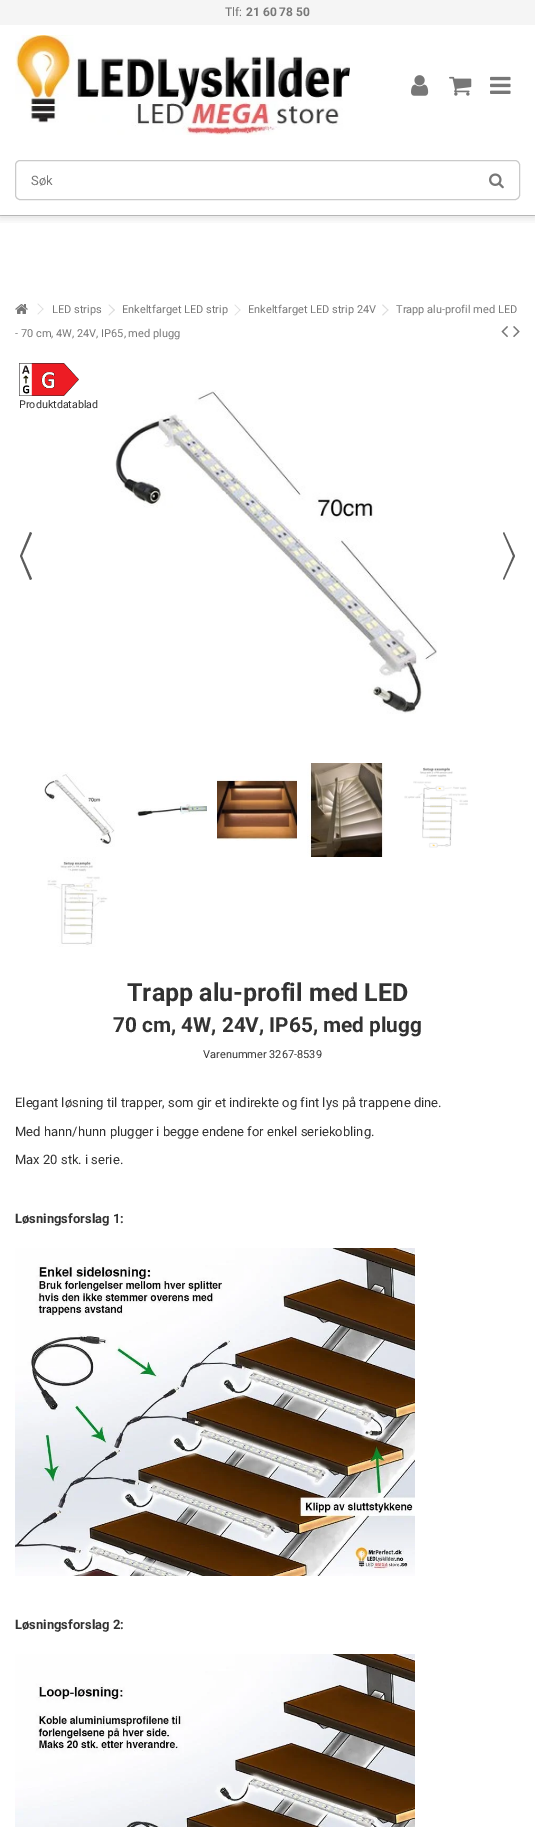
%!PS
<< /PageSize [535 1827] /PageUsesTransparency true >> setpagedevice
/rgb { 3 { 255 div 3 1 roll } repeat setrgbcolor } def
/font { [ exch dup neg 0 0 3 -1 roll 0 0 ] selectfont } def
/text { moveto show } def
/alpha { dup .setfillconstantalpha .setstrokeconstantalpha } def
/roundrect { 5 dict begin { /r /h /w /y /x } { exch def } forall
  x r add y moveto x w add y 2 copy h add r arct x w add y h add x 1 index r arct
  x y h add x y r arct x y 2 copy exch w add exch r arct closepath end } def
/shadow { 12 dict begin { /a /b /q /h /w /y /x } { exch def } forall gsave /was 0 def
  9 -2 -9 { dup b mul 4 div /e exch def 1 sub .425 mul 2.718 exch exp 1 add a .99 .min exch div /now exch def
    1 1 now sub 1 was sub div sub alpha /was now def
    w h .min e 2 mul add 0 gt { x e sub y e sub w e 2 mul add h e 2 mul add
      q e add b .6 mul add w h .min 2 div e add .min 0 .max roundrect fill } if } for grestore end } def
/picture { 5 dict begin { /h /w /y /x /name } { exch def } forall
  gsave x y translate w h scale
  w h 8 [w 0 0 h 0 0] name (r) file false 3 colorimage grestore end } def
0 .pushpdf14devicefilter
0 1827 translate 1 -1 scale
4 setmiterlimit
255 255 255 rgb
0 0 535 1827 rectfill
245 245 245 rgb
0 0 535 25 rectfill
202 202 202 rgb
0 215 535 1 rectfill
gsave
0 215 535 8 rectclip
0 0 0 rgb
0 147 535 70 0 5 0.15 shadow
grestore
255 255 255 rgb
0 140 535 5 rectfill
(img_01.rgb) 15 35 335 100 picture
(img_02.rgb) 411 75 18 21 picture
(img_03.rgb) 449 76 23 20 picture
(img_04.rgb) 490 76 21 18 picture
202 202 202 rgb
15.5 160.5 504 39 4.5 roundrect stroke
(img_05.rgb) 489 173 15 16 picture
(img_06.rgb) 15 304 13 10 picture
221 221 221 rgb
38 303.5 moveto 5.5 5.5 rlineto -0.5 0.5 rlineto -5.5 -5.5 rlineto closepath fill
43 308.5 moveto 0.5 0.5 rlineto -5.5 5.5 rlineto -0.5 -0.5 rlineto closepath fill
109 304.5 moveto 6 5.5 rlineto -1 0.5 rlineto -5.5 -5.5 rlineto closepath fill
114 309.5 moveto 1 0.5 rlineto -6 5.5 rlineto -0.5 -0.5 rlineto closepath fill
235 304.5 moveto 5.5 5.5 rlineto -0.5 0.5 rlineto -5.5 -5.5 rlineto closepath fill
240 309.5 moveto 0.5 0.5 rlineto -5.5 5.5 rlineto -0.5 -0.5 rlineto closepath fill
383 304.5 moveto 5.5 5.5 rlineto -0.5 0.5 rlineto -6 -5.5 rlineto closepath fill
388 309.5 moveto 0.5 0.5 rlineto -5.5 5.5 rlineto -1 -0.5 rlineto closepath fill
(img_07.rgb) 501 326 7 12 picture
(img_08.rgb) 513 326 7 12 picture
(img_09.rgb) 19 363 60 33 picture
(img_10.rgb) 115 390 322 324 picture
91 91 91 rgb
22 556 moveto 10 -23 rlineto -2 -1 rlineto -10 24 rlineto closepath 30 580 moveto 2 -1 rlineto -10 -23 rlineto -2 0 rlineto closepath fill
513 556 moveto -10 -23 rlineto 1 -1 rlineto 11 24 rlineto closepath 504 580 moveto -1 -1 rlineto 10 -23 rlineto 2 0 rlineto closepath fill
(img_11.rgb) 44 772 71 75 picture
(img_12.rgb) 136 802 71 15 picture
(img_13.rgb) 217 776 80 65 picture
(img_14.rgb) 307 763 78 94 picture
(img_15.rgb) 404 767 64 81 picture
(img_16.rgb) 47 857 61 90 picture
(img_17.rgb) 15 1248 400 328 picture
(img_18.rgb) 15 1654 400 173 picture
/Roboto-Regular 12 font
119 119 119 rgb
(Tlf:) 225 16 text
/Roboto-Bold 12 font
(21 60 78 50) 246 16 text
/Roboto-Regular 13 font
(Søk) 31 185 text
/Roboto-Regular 11 font
(LED strips) 52 313 text
(Enkeltfarget LED strip) 122 313 text
(Enkeltfarget LED strip 24V) 248 313 text
(Trapp alu-profil med LED) 396 313 text
(- 70 cm, 4W, 24V, IP65, med plugg) 15 337 text
/Roboto-Regular 10.75 font
50 50 50 rgb
(Produktdatablad) 19 408 text
/Roboto-Bold 25 font
(Trapp alu-profil med LED) 127 1001 text
/Roboto-Bold 20.8 font
(70 cm, 4W, 24V, IP65, med plugg) 113 1032 text
/Roboto-Regular 11 font
(Varenummer 3267-8539) 203 1058 text
/Roboto-Regular 13 font
(Elegant løsning til trapper, som gir et indirekte og fint lys på trappene dine.) 15 1107 text
(Med hann/hunn plugger i begge endene for enkel seriekobling.) 15 1136 text
(Max 20 stk. i serie.) 15 1164 text
/Roboto-Bold 13 font
(Løsningsforslag 1:) 15 1223 text
(Løsningsforslag 2:) 15 1629 text
.poppdf14devicefilter showpage
